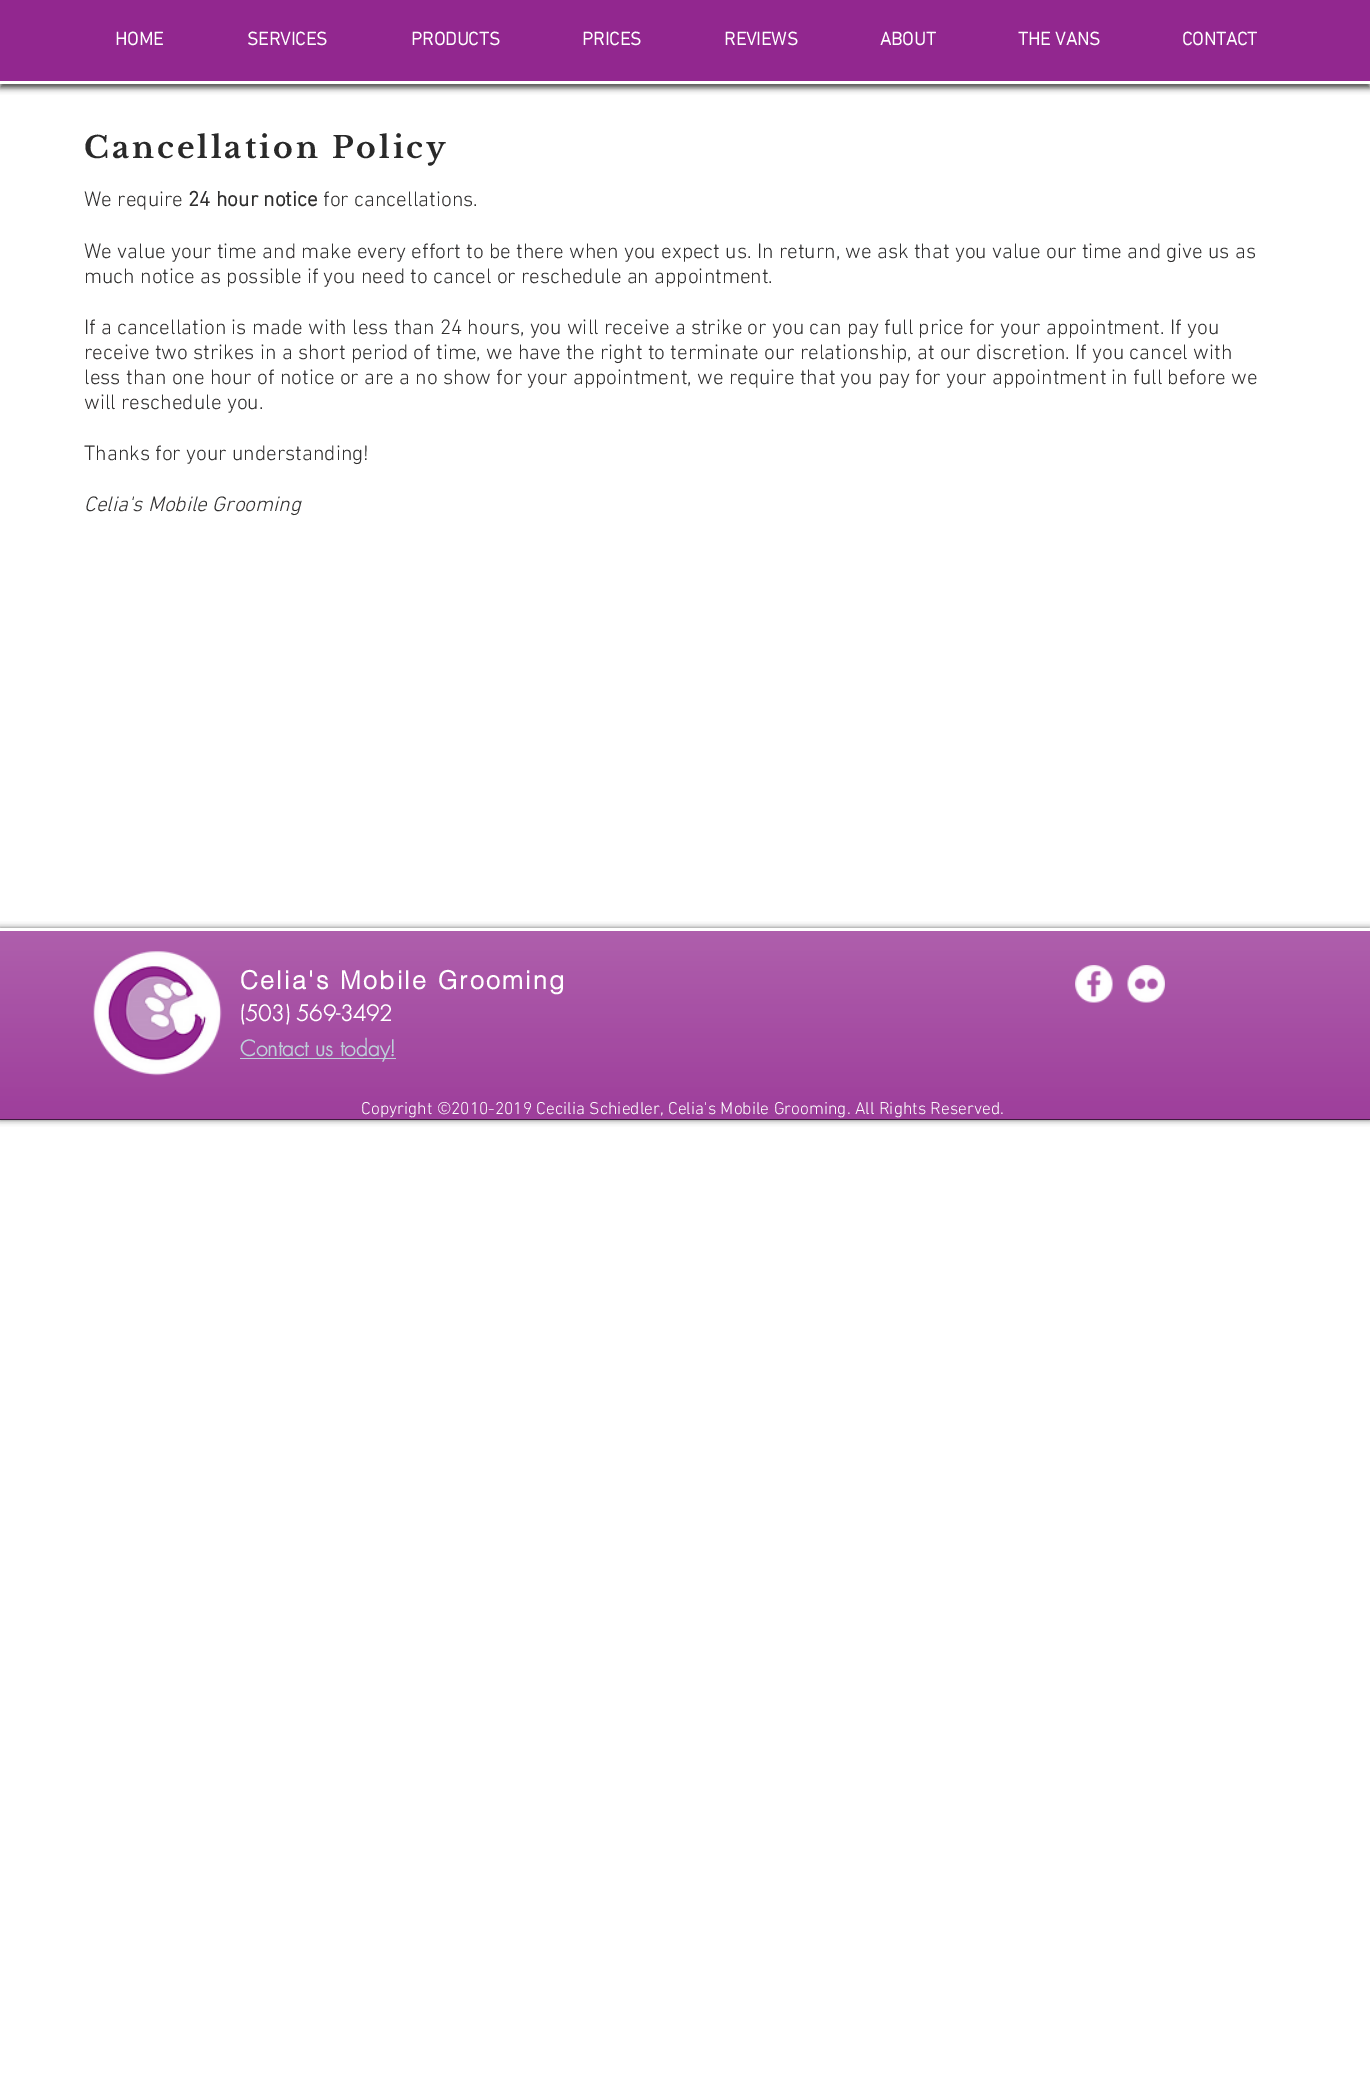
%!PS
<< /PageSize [1370 2073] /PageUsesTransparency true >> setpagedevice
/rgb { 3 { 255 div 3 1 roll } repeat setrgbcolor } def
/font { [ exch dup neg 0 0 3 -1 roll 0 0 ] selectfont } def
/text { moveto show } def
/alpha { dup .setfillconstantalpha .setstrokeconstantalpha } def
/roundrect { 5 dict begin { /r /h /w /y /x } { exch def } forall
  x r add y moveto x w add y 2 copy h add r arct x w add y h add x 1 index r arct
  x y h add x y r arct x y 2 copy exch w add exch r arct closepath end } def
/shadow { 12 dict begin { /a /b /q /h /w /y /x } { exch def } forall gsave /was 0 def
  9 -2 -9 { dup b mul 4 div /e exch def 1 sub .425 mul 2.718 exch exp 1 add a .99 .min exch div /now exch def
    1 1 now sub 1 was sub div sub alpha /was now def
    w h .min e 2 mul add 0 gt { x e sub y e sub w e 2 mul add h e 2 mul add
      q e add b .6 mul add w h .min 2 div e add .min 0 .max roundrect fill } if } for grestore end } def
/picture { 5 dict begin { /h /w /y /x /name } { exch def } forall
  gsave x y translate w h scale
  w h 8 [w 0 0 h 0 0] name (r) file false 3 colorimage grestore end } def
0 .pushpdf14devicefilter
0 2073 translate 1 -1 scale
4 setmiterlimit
255 255 255 rgb
0 0 1370 2073 rectfill
0 0 0 rgb
0 4 1370 84 0 3 0.7 shadow
146 39 143 rgb
0 0 1370 81 rectfill
255 255 255 rgb
0 81 1370 3 rectfill
0 0 0 rgb
0 928 1370 192 0 3 0.6 shadow
146 39 143 rgb
0 931 1370 188 rectfill
(img_01.rgb) 0 931 1370 188 picture
63 25 62 rgb
0 1119 1370 1 rectfill
255 255 255 rgb
0 928 1370 3 rectfill
(img_02.rgb) 93 951 129 125 picture
(img_03.rgb) 1075 965 38 38 picture
(img_04.rgb) 1127 965 38 38 picture
189 207 217 rgb
240 1058 156 1 rectfill
/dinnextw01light-Bold 18.75 font
255 255 255 rgb
(HOME) 115 45 text
(SERVICES) 247 45 text
(PRODUCTS) 411 45 text
(PRICES) 582 45 text
(REVIEWS) 724 45 text
(ABOUT) 880 45 text
(THE VANS) 1018 45 text
(CONTACT) 1182 45 text
/LibreBaskerville-Bold 30 font
41 41 41 rgb
84 158 moveto 3 0 (Cancellation Policy) ashow
/dinnextw01light-Light 21.25 font
47 46 46 rgb
(We require) 84 206 text
/dinnextw01light-Bold 21.25 font
(24 hour notice) 188 206 text
/dinnextw01light-Light 21.25 font
(for cancellations.) 323 206 text
(We value your time and make every effort to be there when you expect us. In return, we ask that you value our time and give us as) 84 258 text
(much notice as possible if you need to cancel or reschedule an appointment.) 84 283 text
(If a cancellation is made with less than 24 hours, you will receive a strike or you can pay full price for your appointment. If you) 84 334 text
(receive two strikes in a short period of time, we have the right to terminate our relationship, at our discretion. If you cancel with) 84 359 text
(less than one hour of notice or are a no show for your appointment, we require that you pay for your appointment in full before we) 84 384 text
(will reschedule you.) 84 409 text
(Thanks for your understanding!) 84 460 text
/dinnextw01light-LightItalic 21.25 font
(Celia's Mobile Grooming) 84 511 text
/helvetica-Bold 25 font
255 255 255 rgb
240 989 moveto 2.25 0 (Celia's Mobile Grooming) ashow
/futura-Bold 21.25 font
(\(503\) 569-3492) 240 1021 text
189 207 217 rgb
(Contact us today!) 240 1056 text
/dinnextw01light-Light 17.5 font
255 255 255 rgb
(Copyright ©2010-2019 Cecilia Schiedler, Celia's Mobile Grooming. All Rights Reserved.) 361 1114 text
.poppdf14devicefilter showpage
